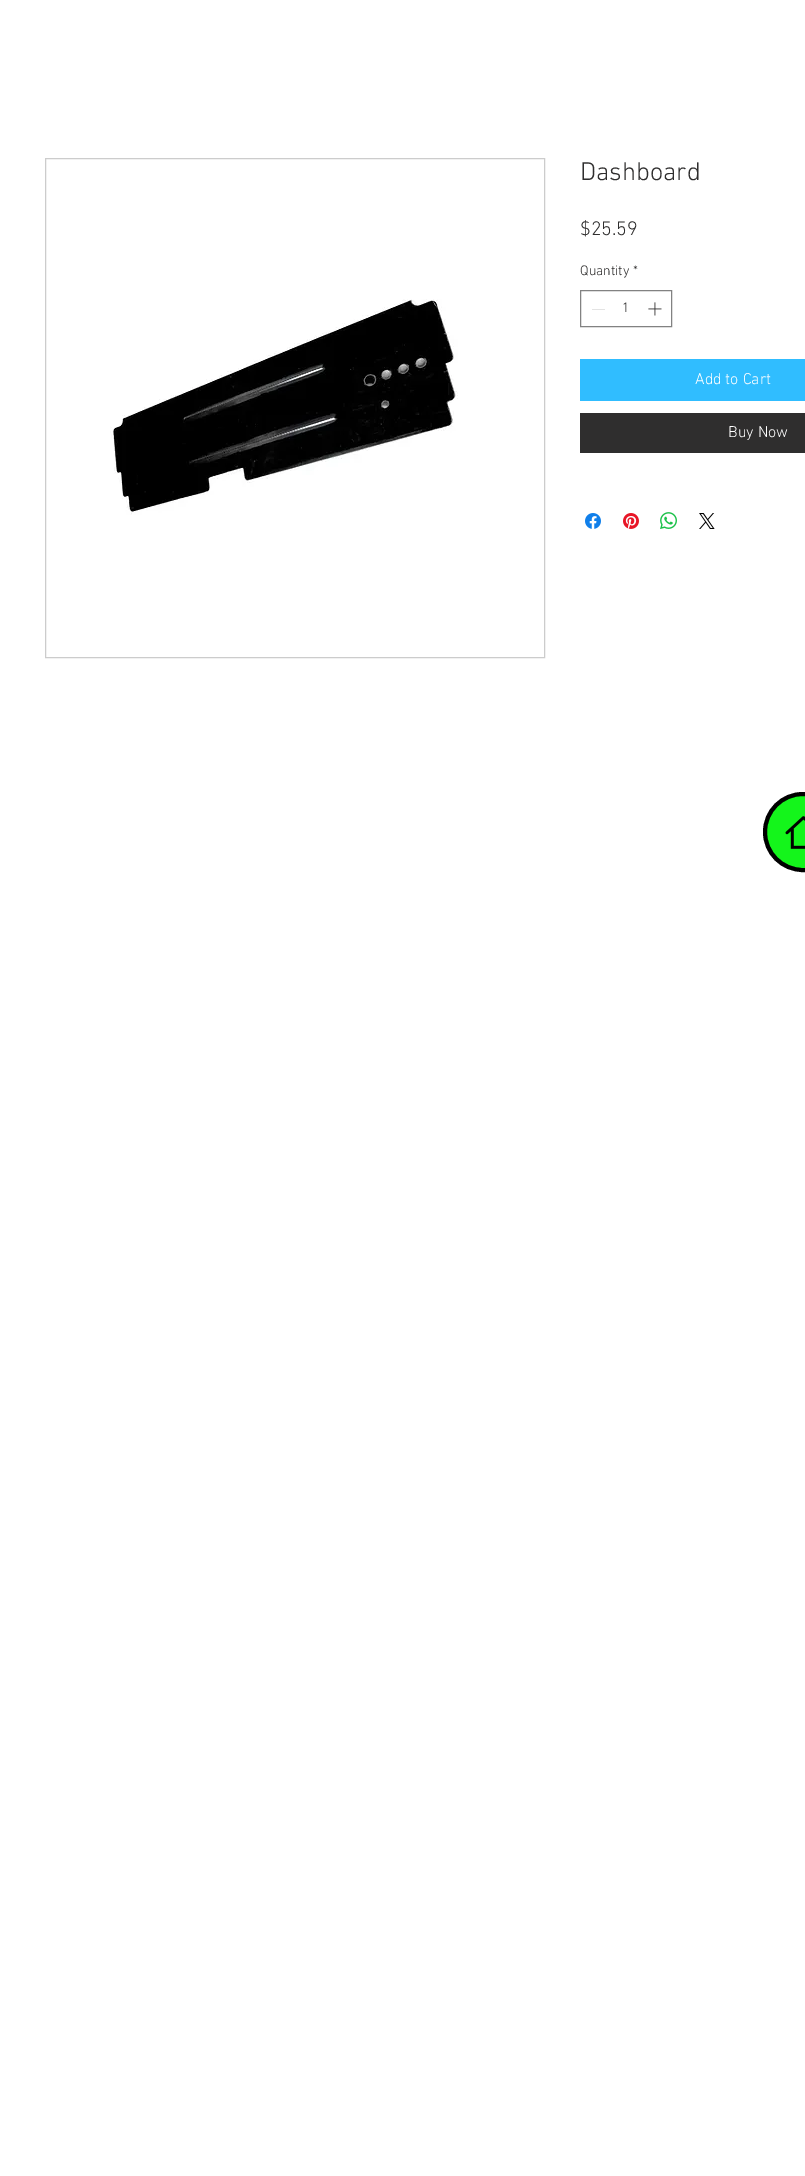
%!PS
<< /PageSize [805 2176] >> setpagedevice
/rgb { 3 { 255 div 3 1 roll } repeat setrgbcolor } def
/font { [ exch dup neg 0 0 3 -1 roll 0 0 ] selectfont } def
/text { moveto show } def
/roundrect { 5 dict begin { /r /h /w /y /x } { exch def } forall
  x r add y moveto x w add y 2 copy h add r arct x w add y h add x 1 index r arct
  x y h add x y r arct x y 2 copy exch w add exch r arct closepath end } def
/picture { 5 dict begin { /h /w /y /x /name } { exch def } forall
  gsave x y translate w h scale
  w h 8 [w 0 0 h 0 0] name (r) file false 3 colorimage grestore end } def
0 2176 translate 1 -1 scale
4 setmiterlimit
255 255 255 rgb
0 0 805 2176 rectfill
204 204 204 rgb
45.5 158.5 499 499 rectstroke
(img_01.rgb) 110 299 348 216 picture
130 130 130 rgb
580.5 290.5 91 36 rectstroke
227 227 227 rgb
592 309 13 1 rectfill
(img_02.rgb) 648 302 14 14 picture
48 189 255 rgb
580 359 225 42 rectfill
47 46 46 rgb
580 413 225 40 rectfill
(img_03.rgb) 585 513 16 16 picture
(img_04.rgb) 623 513 16 16 picture
(img_05.rgb) 660 512 17 17 picture
(img_06.rgb) 699 513 16 16 picture
20 245 27 rgb
765 794 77 76 38 roundrect gsave fill grestore
0 0 0 rgb
4 setlinewidth
stroke
(img_07.rgb) 785 816 20 33 picture
/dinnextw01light-Light 26 font
47 46 46 rgb
(Dashboard) 580 180 text
/dinnextw01light-Light 20 font
($25.59) 580 235 text
/dinnextw01light-Light 14 font
(Quantity) 580 275 text
(*) 633 275 text
(1) 622 312 text
/dinnextw01light-Light 16 font
255 255 255 rgb
(Add to Cart) 695 384 text
(Buy Now) 728 437 text
showpage
